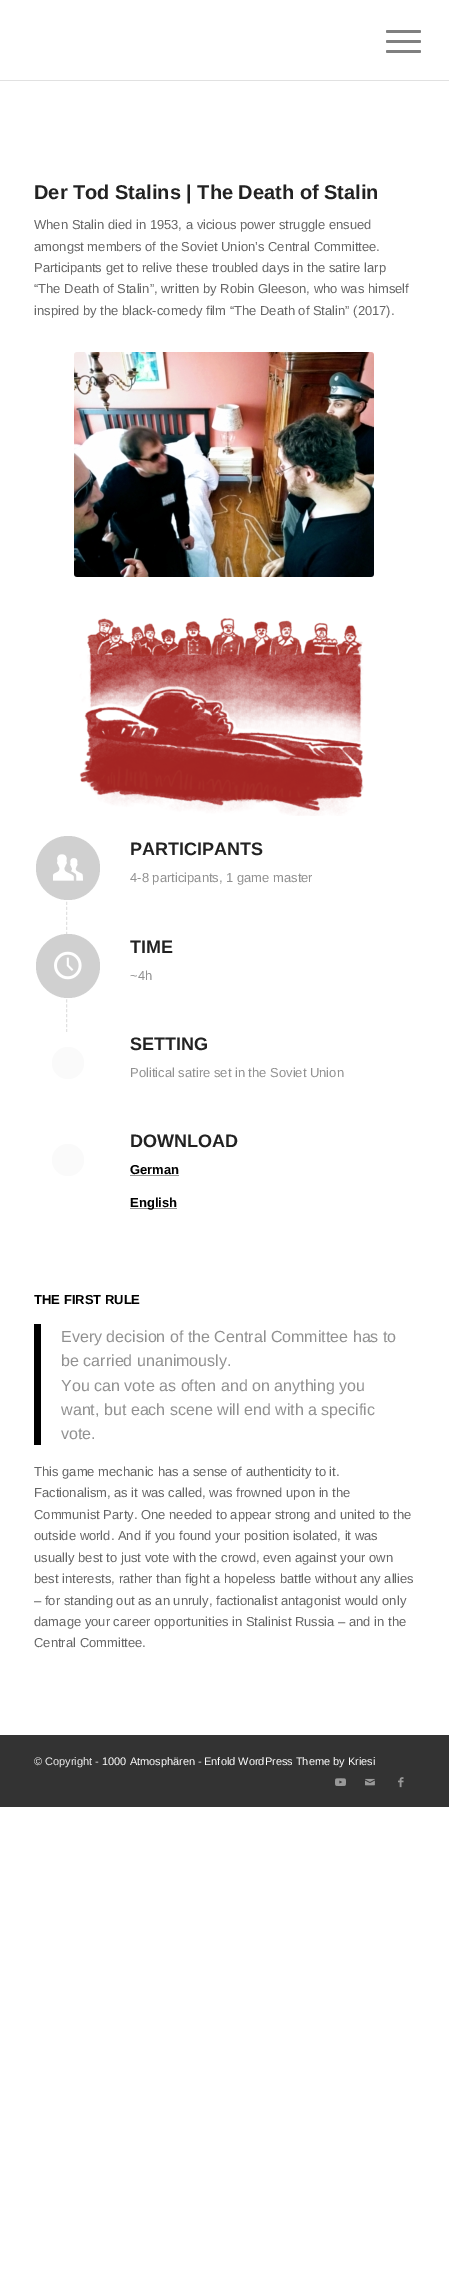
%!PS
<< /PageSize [449 2280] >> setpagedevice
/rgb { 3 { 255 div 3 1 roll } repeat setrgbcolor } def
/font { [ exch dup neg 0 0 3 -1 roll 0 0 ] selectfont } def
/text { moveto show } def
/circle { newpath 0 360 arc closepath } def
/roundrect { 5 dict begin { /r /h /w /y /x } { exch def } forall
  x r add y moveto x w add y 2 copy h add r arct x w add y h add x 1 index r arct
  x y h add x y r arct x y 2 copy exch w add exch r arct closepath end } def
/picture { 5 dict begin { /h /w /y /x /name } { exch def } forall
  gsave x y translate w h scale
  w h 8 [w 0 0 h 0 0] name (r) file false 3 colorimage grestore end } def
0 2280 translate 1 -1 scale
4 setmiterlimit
255 255 255 rgb
0 0 449 2280 rectfill
225 225 225 rgb
0 80 449 1 rectfill
128 128 128 rgb
386 40 35 3 1.5 roundrect fill
386 30 35 3 1.5 roundrect fill
386 50 35 3 1.5 roundrect fill
(img_01.rgb) 74 352 300 225 picture
(img_02.rgb) 79 618 285 198 picture
225 225 225 rgb
[3 2] 0 setdash
66.5 837 moveto 0 98 rlineto stroke
208 208 208 rgb
68 868 32 circle fill
(img_03.rgb) 53 854 30 27 picture
225 225 225 rgb
[3 1.95] 0 setdash
66.5 935 moveto 0 97 rlineto stroke
208 208 208 rgb
68 966 32 circle fill
(img_04.rgb) 54 951 28 29 picture
250 250 250 rgb
68 1063 16 circle fill
68 1160 16 circle fill
145 145 145 rgb
130 1175 49 1 rectfill
130 1208 47 1 rectfill
0 0 0 rgb
34 1324 7 121 rectfill
51 51 51 rgb
0 1735 449 72 rectfill
(img_05.rgb) 335 1778 11 8 picture
(img_06.rgb) 365 1778 10 8 picture
(img_07.rgb) 398 1777 6 11 picture
/LiberationSans-Bold 20 font
34 34 34 rgb
(Der Tod Stalins | The Death of Stalin) 34 199 text
/LiberationSans-Regular 13 font
102 102 102 rgb
(When Stalin died in 1953, a vicious power struggle ensued) 34 229 text
(amongst members of the Soviet Union’s Central Committee.) 34 251 text
(Participants get to relive these troubled days in the satire larp) 34 272 text
(“The Death of Stalin”, written by Robin Gleeson, who was himself) 34 293 text
(inspired by the black-comedy film “The Death of Stalin” \(2017\).) 34 315 text
/LiberationSans-Bold 18 font
34 34 34 rgb
(PARTICIPANTS) 130 855 text
/LiberationSans-Regular 13 font
145 145 145 rgb
(4-8 participants, 1 game master) 130 882 text
/LiberationSans-Bold 18 font
34 34 34 rgb
(TIME) 130 953 text
/LiberationSans-Regular 13 font
145 145 145 rgb
(~4h) 130 980 text
/LiberationSans-Bold 18 font
34 34 34 rgb
(SETTING) 130 1050 text
/LiberationSans-Regular 13 font
145 145 145 rgb
(Political satire set in the Soviet Union) 130 1077 text
/LiberationSans-Bold 18 font
34 34 34 rgb
(DOWNLOAD) 130 1147 text
/LiberationSans-Bold 13 font
0 0 0 rgb
(German) 130 1174 text
(English) 130 1207 text
(THE FIRST RULE) 34 1304 text
/LiberationSans-Regular 16.05 font
145 145 145 rgb
(Every decision of the Central Committee has to) 61 1342 text
(be carried unanimously.) 61 1366 text
(You can vote as often and on anything you) 61 1391 text
(want, but each scene will end with a specific) 61 1415 text
(vote.) 61 1439 text
/LiberationSans-Regular 13 font
102 102 102 rgb
(This game mechanic has a sense of authenticity to it.) 34 1476 text
(Factionalism, as it was called, was frowned upon in the) 34 1497 text
(Communist Party. One needed to appear strong and united to the) 34 1519 text
(outside world. And if you found your position isolated, it was) 34 1540 text
(usually best to just vote with the crowd, even against your own) 34 1562 text
(best interests, rather than fight a hopeless battle without any allies) 34 1583 text
(– for standing out as an unruly, factionalist antagonist would only) 34 1605 text
(damage your career opportunities in Stalinist Russia – and in the) 34 1626 text
(Central Committee.) 34 1647 text
/LiberationSans-Regular 11 font
238 238 238 rgb
(© Copyright -) 34 1765 text
255 255 255 rgb
(1000 Atmosphären) 102 1765 text
238 238 238 rgb
(-) 198 1765 text
255 255 255 rgb
(Enfold WordPress Theme by Kriesi) 204 1765 text
showpage
